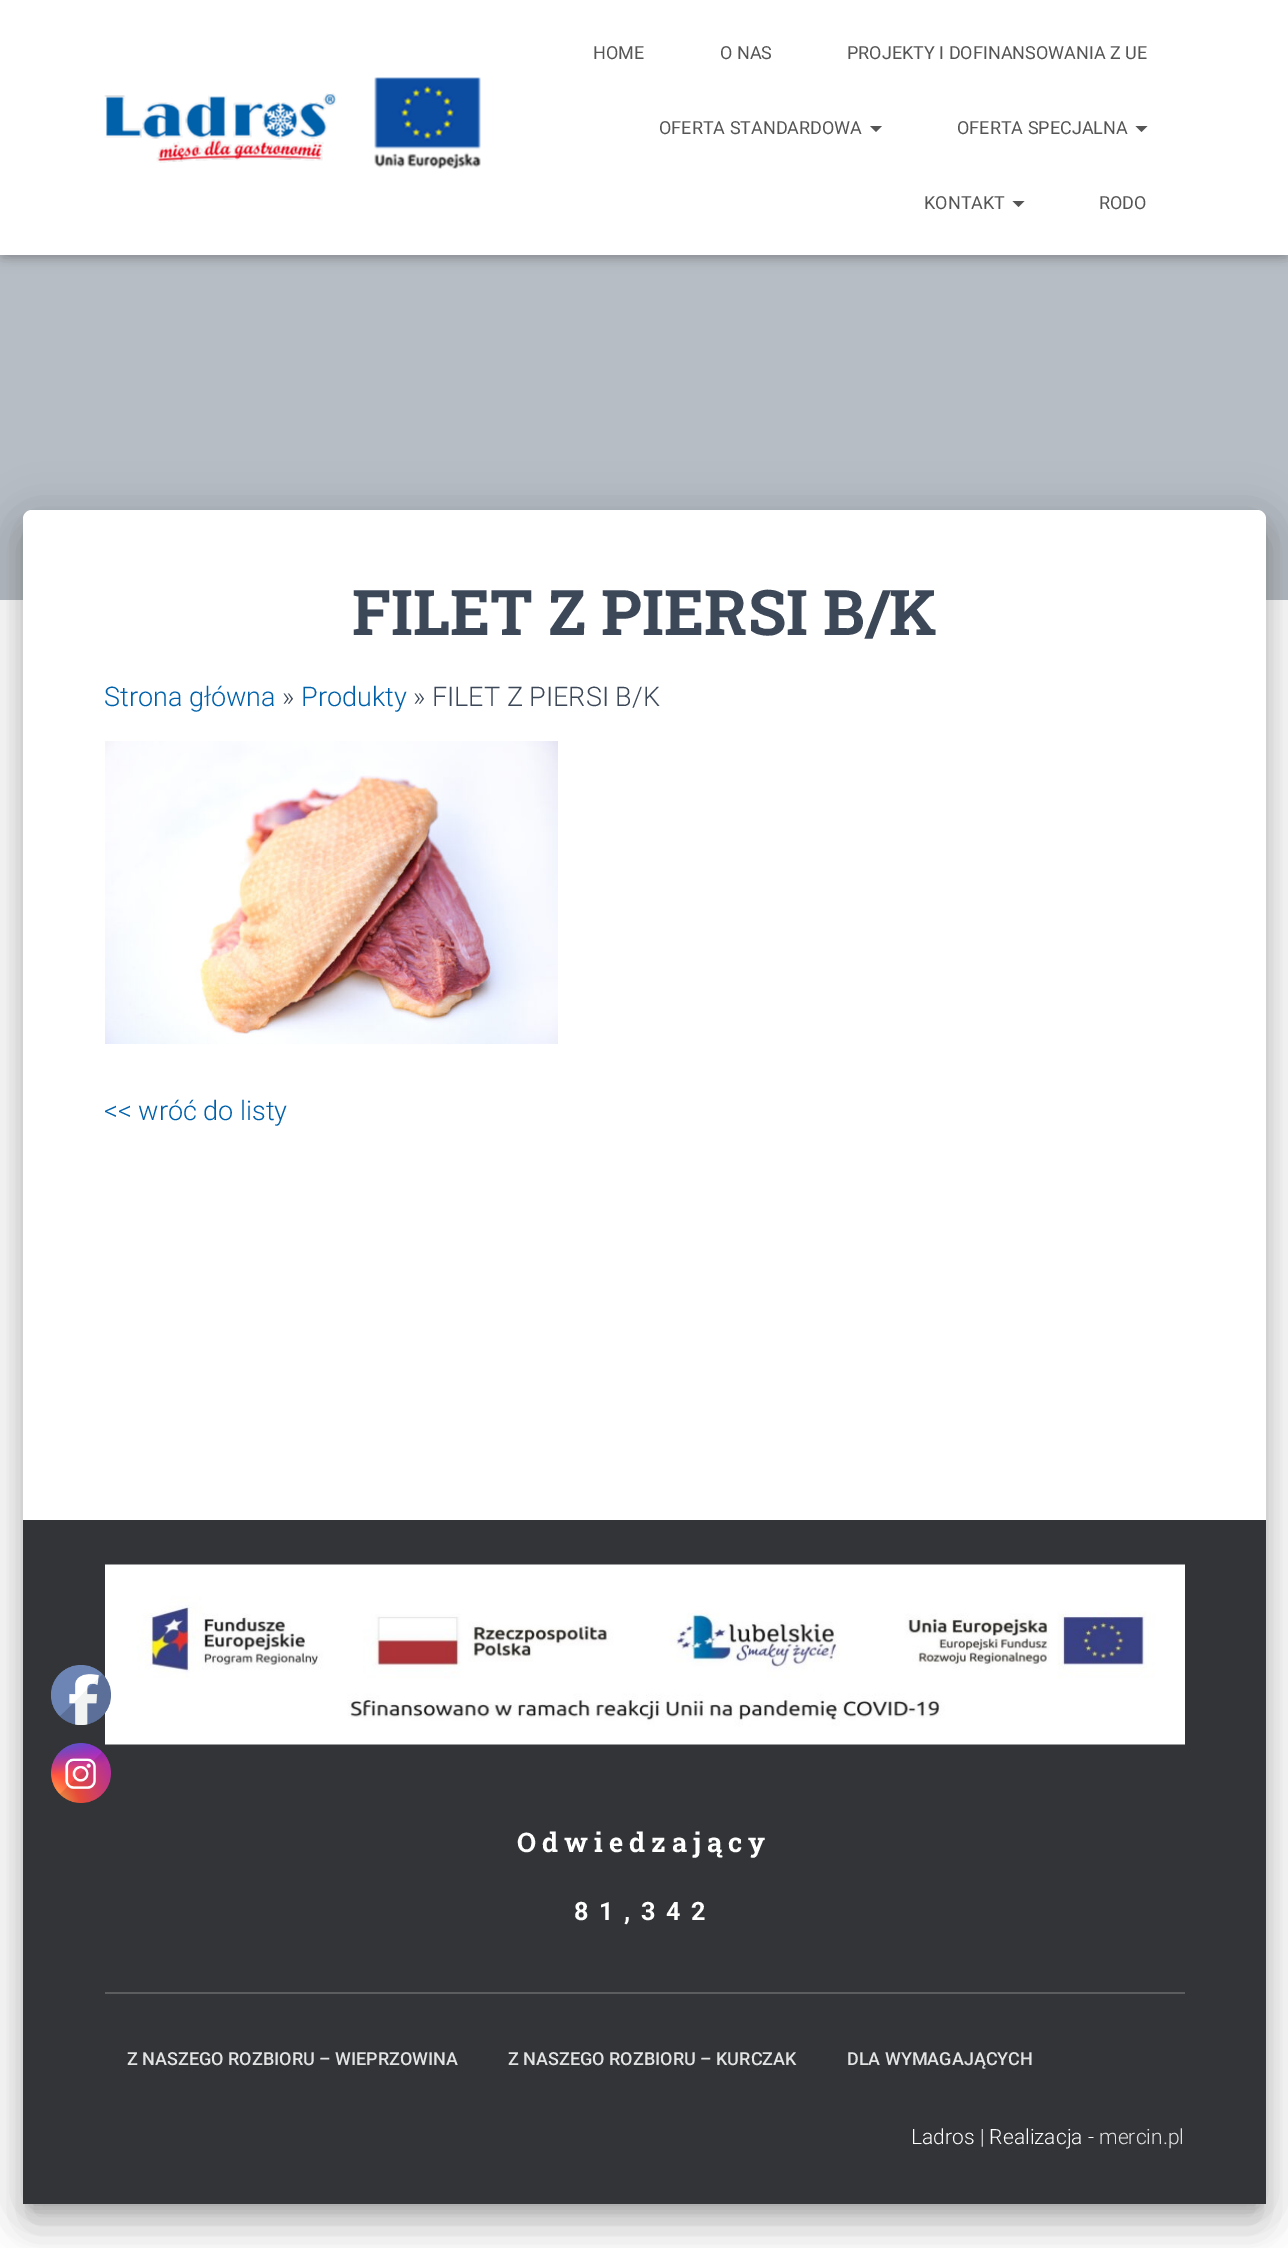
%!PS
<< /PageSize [1288 2248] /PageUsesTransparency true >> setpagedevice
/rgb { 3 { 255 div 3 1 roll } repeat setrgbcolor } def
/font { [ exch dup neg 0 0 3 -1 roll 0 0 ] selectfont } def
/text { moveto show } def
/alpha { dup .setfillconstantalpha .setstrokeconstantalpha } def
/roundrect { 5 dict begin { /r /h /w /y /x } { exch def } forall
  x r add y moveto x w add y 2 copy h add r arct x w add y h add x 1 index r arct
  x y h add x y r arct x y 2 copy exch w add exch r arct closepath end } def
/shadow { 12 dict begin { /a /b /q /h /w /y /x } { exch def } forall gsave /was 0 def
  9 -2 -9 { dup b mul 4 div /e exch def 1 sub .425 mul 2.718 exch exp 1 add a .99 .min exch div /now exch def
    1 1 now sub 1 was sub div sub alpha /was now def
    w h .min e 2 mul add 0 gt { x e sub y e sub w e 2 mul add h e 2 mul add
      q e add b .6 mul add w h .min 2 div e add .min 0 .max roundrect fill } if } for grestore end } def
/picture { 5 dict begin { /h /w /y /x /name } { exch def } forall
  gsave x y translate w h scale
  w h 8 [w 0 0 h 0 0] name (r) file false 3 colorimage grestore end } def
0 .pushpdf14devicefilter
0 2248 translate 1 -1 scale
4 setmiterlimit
255 255 255 rgb
0 0 1288 2248 rectfill
182 189 196 rgb
0 255 1288 345 rectfill
0 0 0 rgb
30 530 1229 1678 1.5 7.5 0.2 shadow
15 512 1259 1708 17 22.5 0.12 shadow
20 531 1249 1700 12 18 0.14 shadow
255 255 255 rgb
32 510 moveto 1225 0 rlineto 5 0 9 4 9 9 rcurveto 0 1685 rlineto -1243 0 rlineto 0 -1685 rlineto 0 -5 4 -9 9 -9 rcurveto closepath fill
50 52 55 rgb
23 1520 1243 684 rectfill
(img_06.rgb) 105 1564 1080 181 picture
(img_01.rgb) 51 1665 60 60 picture
(img_02.rgb) 51 1743 60 60 picture
0 0 0 rgb
3 9 1283 249 0 4 0.1 shadow
0 2 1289 255 0 7.5 0.12 shadow
9 11 1271 237 0 7.5 0.42 shadow
255 255 255 rgb
0 0 1288 255 rectfill
(img_03.rgb) 104 93 233 70 picture
(img_04.rgb) 374 77 107 92 picture
85 85 85 rgb
870 126 moveto 12 0 rlineto -6 6 rlineto closepath fill
1135.5 126 moveto 12 0 rlineto -6 6 rlineto closepath fill
1012.5 201 moveto 12 0 rlineto -6 6 rlineto closepath fill
(img_05.rgb) 105 741 453 303 picture
91 93 95 rgb
105 1992 1080 2 rectfill
/Roboto-Regular 18 font
85 85 85 rgb
(HOME) 593 59 text
(O NAS) 720 59 text
(PROJEKTY I DOFINANSOWANIA Z UE) 847 59 text
(OFERTA STANDARDOWA) 659 134 text
(OFERTA SPECJALNA) 957 134 text
(KONTAKT) 924 209 text
(RODO) 1099 209 text
/RobotoSlab-Bold 63 font
60 72 88 rgb
(FILET Z PIERSI B/K) 352 635 text
/Roboto-Light 27 font
0 97 171 rgb
(Strona główna) 104 706 text
60 72 88 rgb
(») 282 706 text
0 97 171 rgb
(Produkty) 301 706 text
60 72 88 rgb
(» FILET Z PIERSI B/K) 413 706 text
0 97 171 rgb
(<< wróć do listy) 104 1120 text
/RobotoSlab-Bold 27 font
255 255 255 rgb
517 1852 moveto 6 0 (Odwiedzający) ashow
/Roboto-Bold 25.25 font
574 1920 moveto 10.5 0 (81,342) ashow
/Roboto-Medium 18 font
226 227 227 rgb
(Z NASZEGO ROZBIORU – WIEPRZOWINA) 127 2065 text
(Z NASZEGO ROZBIORU – KURCZAK) 508 2065 text
(DLA WYMAGAJĄCYCH) 847 2065 text
/Roboto-Light 21 font
255 255 255 rgb
(Ladros | Realizacja -) 911 2144 text
226 227 227 rgb
(mercin.pl) 1099 2144 text
.poppdf14devicefilter showpage
